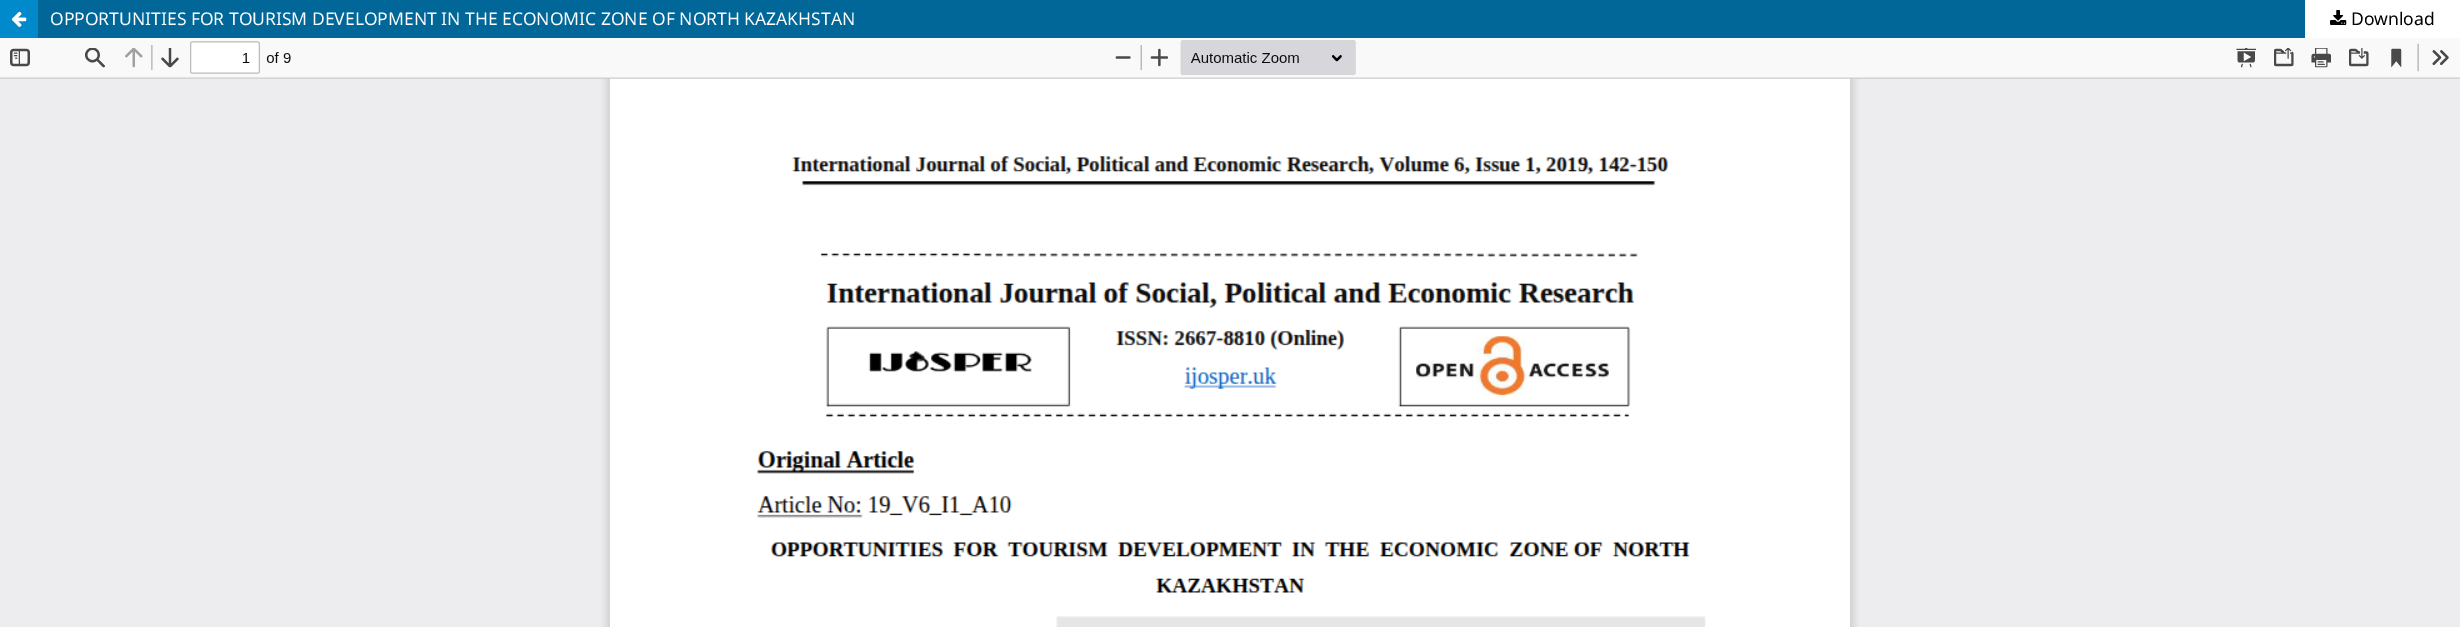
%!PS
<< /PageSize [2460 627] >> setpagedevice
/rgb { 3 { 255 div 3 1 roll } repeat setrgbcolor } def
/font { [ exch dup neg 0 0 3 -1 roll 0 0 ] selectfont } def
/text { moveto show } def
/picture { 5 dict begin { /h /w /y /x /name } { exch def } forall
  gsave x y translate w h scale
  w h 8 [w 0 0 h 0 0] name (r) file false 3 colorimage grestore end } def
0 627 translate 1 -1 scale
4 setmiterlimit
255 255 255 rgb
0 0 2460 627 rectfill
0 103 152 rgb
38 0 2267 38 rectfill
0 138 203 rgb
0 0 38 38 rectfill
(img_01.rgb) 11 11 16 16 picture
(img_02.rgb) 2330 10 17 15 picture
(img_03.rgb) 0 38 2460 589 picture
/NotoSans-Regular 17.5 font
255 255 255 rgb
(OPPORTUNITIES FOR TOURISM DEVELOPMENT IN THE ECONOMIC ZONE OF NORTH KAZAKHSTAN) 50 25 text
0 0 0 rgb
(Download) 2351 25 text
showpage
